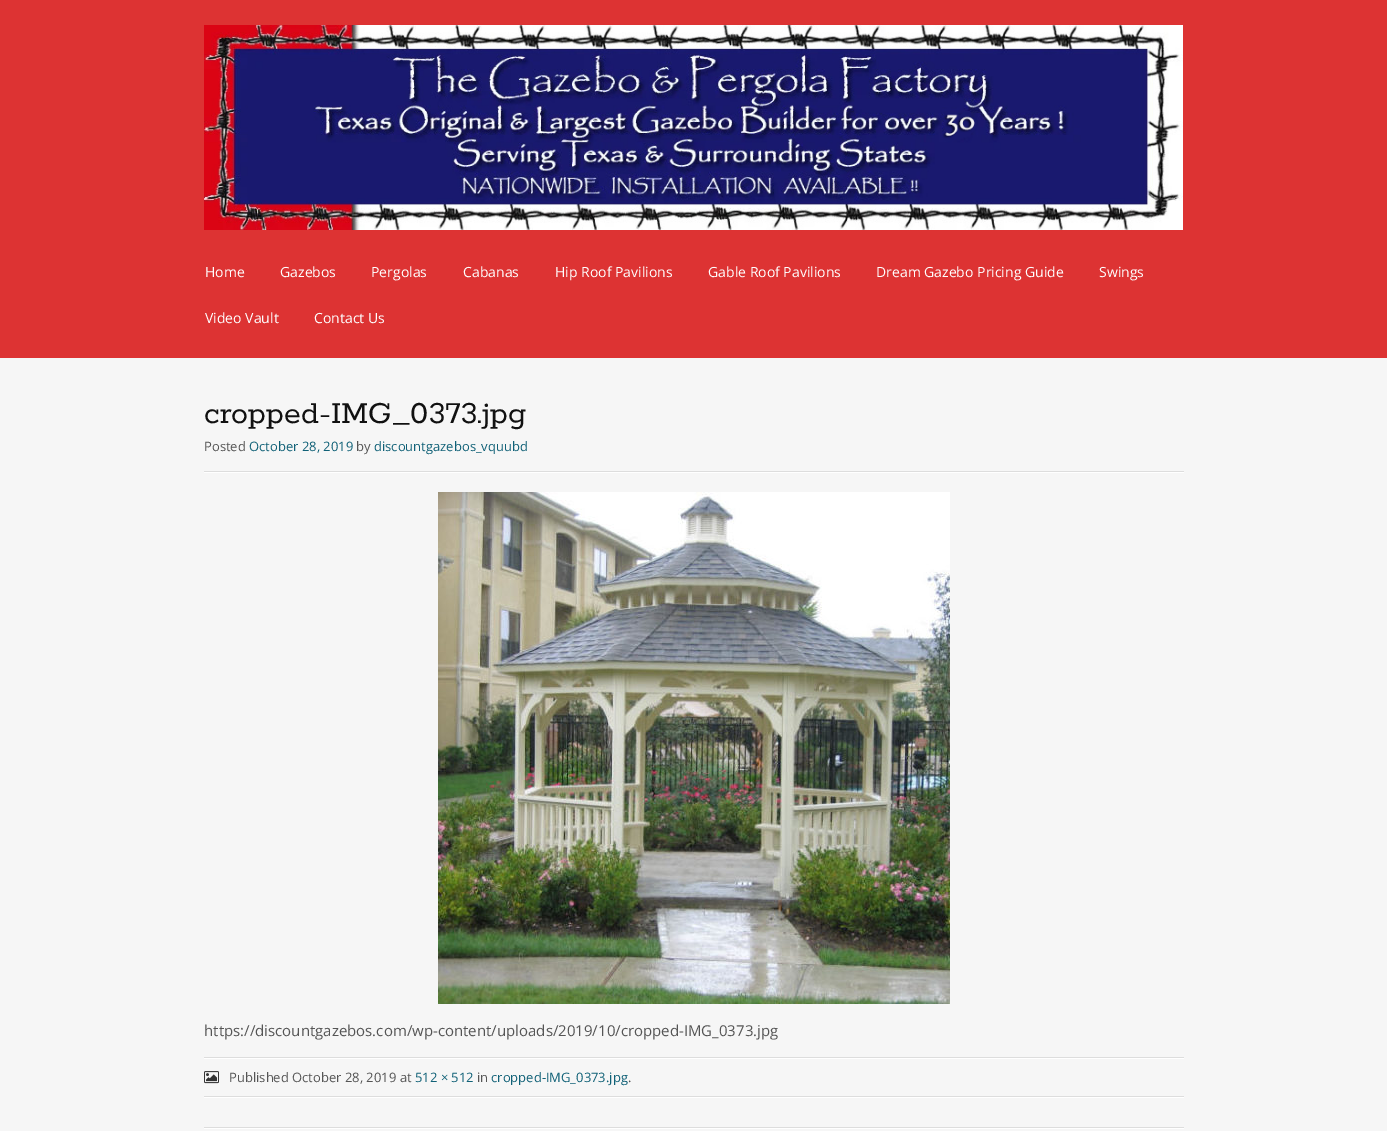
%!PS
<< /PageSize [1387 1131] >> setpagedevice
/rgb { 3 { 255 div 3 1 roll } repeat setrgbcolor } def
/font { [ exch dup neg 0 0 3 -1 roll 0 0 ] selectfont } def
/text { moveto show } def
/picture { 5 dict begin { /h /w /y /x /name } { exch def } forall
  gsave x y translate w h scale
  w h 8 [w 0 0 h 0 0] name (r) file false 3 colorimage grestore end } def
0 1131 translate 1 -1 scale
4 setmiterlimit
246 246 246 rgb
0 0 1387 1131 rectfill
221 51 51 rgb
0 0 1387 358 rectfill
(img_01.rgb) 204 25 979 205 picture
255 255 255 rgb
204 472 980 1 rectfill
221 221 221 rgb
204 471 980 1 rectfill
(img_02.rgb) 438 492 512 512 picture
255 255 255 rgb
204 1058 980 1 rectfill
221 221 221 rgb
204 1057 980 1 rectfill
(img_03.rgb) 204 1071 15 13 picture
255 255 255 rgb
204 1097 980 1 rectfill
221 221 221 rgb
204 1096 980 1 rectfill
255 255 255 rgb
204 1128 980 1 rectfill
221 221 221 rgb
204 1127 980 1 rectfill
/OpenSans-Regular 14 font
255 255 255 rgb
(Home) 205 277 text
(Gazebos) 280 277 text
(Pergolas) 371 277 text
(Cabanas) 463 277 text
(Hip Roof Pavilions) 555 277 text
(Gable Roof Pavilions) 708 277 text
(Dream Gazebo Pricing Guide) 876 277 text
(Swings) 1099 277 text
(Video Vault) 205 323 text
(Contact Us) 314 323 text
/Rokkitt-Regular 34 font
17 17 17 rgb
(cropped-IMG_0373.jpg) 204 423 text
/OpenSans-Regular 13 font
85 85 85 rgb
(Posted) 204 451 text
16 97 119 rgb
(October 28, 2019) 249 451 text
85 85 85 rgb
(by) 356 451 text
16 97 119 rgb
(discountgazebos_vquubd) 374 451 text
/OpenSans-Regular 15 font
85 85 85 rgb
(https://discountgazebos.com/wp-content/uploads/2019/10/cropped-IMG_0373.jpg) 204 1036 text
/OpenSans-Regular 13 font
(Published October 28, 2019 at) 229 1082 text
16 97 119 rgb
(512 × 512) 415 1082 text
85 85 85 rgb
(in) 477 1082 text
16 97 119 rgb
(cropped-IMG_0373.jpg) 491 1082 text
85 85 85 rgb
(.) 628 1082 text
showpage
